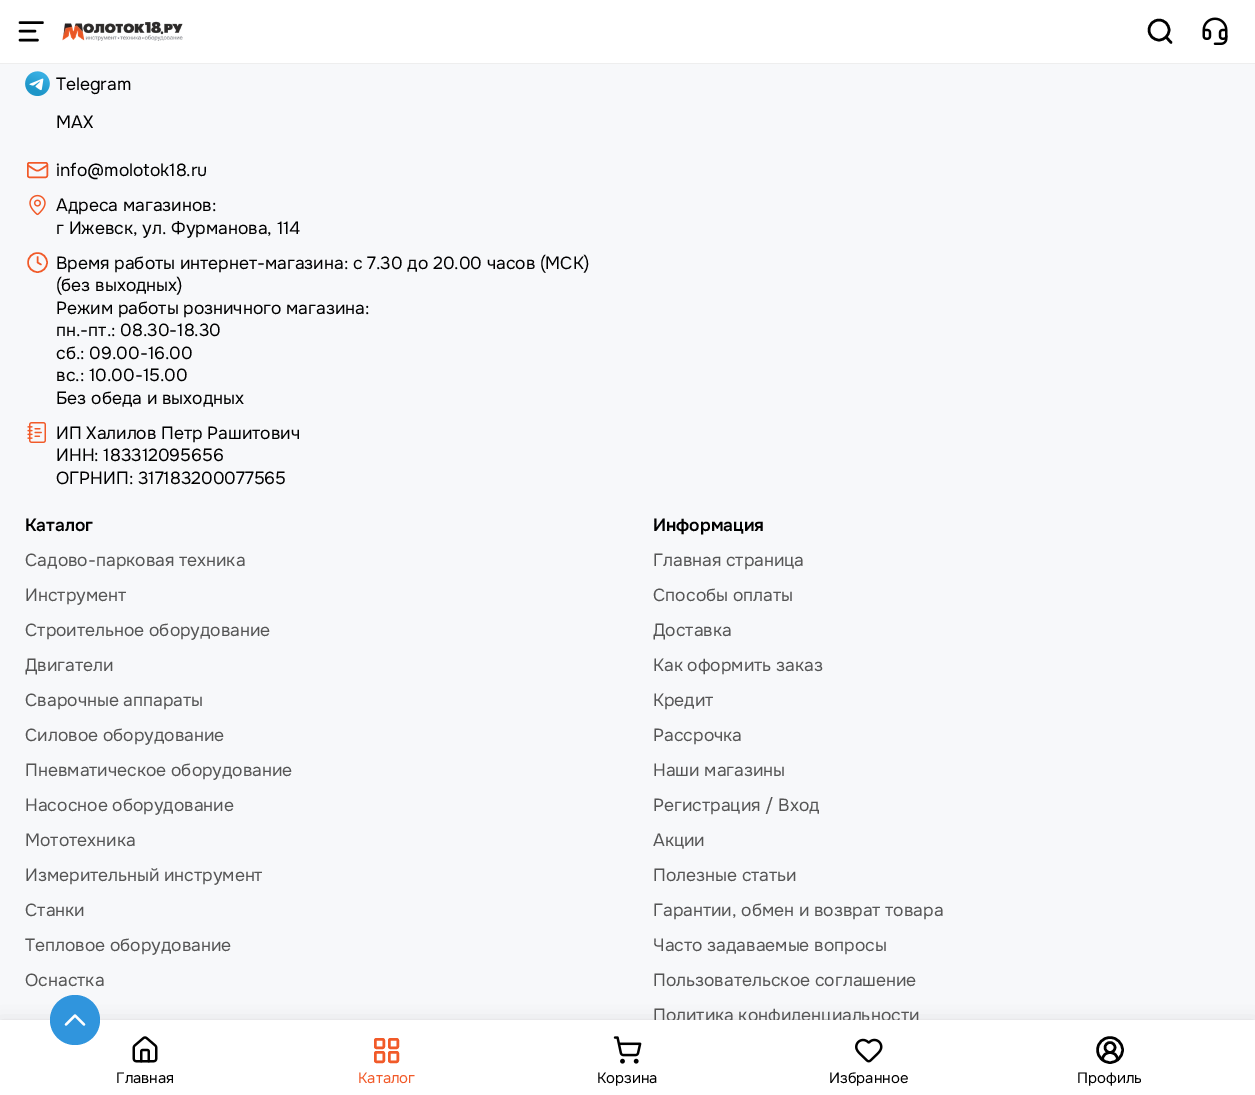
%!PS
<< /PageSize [1255 1095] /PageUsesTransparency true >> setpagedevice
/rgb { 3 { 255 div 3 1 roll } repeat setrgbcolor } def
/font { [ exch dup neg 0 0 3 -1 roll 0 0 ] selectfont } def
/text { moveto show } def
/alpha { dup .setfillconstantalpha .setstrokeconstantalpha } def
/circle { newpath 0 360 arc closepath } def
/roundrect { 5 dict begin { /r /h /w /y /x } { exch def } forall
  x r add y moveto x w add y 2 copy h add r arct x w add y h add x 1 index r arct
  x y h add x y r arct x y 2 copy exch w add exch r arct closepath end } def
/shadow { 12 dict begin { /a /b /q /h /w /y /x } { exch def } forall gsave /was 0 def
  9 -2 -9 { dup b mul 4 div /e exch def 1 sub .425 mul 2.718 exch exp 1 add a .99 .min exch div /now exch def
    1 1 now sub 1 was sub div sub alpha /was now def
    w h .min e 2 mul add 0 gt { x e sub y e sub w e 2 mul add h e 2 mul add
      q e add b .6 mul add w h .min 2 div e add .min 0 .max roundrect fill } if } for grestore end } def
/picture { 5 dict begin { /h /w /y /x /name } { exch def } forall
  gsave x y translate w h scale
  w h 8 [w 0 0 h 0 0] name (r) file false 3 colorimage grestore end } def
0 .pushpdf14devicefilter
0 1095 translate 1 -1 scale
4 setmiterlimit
247 248 250 rgb
0 0 1255 1095 rectfill
238 238 238 rgb
0 63 1255 1 rectfill
255 255 255 rgb
0 0 1255 63 rectfill
0 0 0 rgb
2.5 setlinewidth
1 setlinecap
1 setlinejoin
42.5 22.5 moveto -22.5 0 rlineto 35 31 moveto -15 0 rlineto 37.5 40 moveto -17.5 0 rlineto stroke
(img_01.rgb) 62 21 121 20 picture
1171 42.5 moveto -5 -5.5 rlineto stroke
0 setlinecap
0 setlinejoin
1159 30 10 circle stroke
(img_02.rgb) 1202 17 26 28 picture
(img_03.rgb) 25 71 25 25 picture
241 90 41 rgb
1.5 setlinewidth
1 setlinecap
1 setlinejoin
47 165.5 moveto -11.5 7 -7.5 7 -19 0 rcurveto stroke
0 setlinecap
0 setlinejoin
27.75 162.75 19.5 14.5 1.75 roundrect stroke
(img_04.rgb) 29 194 17 22 picture
1 setlinecap
1 setlinejoin
37.5 257 moveto 0 5.5 rlineto 3.5 2 rlineto stroke
0 setlinecap
0 setlinejoin
37.5 262.5 9.5 circle stroke
(img_05.rgb) 27 422 19 21 picture
0 0 0 rgb
0 1026 1255 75 0 9.5 0.2 shadow
/Onest-Regular 17.5 font
(Telegram) 56 90 text
(MAX) 56 128 text
(info@molotok18.ru) 56 176 text
(Адреса магазинов:) 56 211 text
(г Ижевск, ул. Фурманова, 114) 56 234 text
(Время работы интернет-магазина: с 7.30 до 20.00 часов \(МСК\)) 56 269 text
(\(без выходных\)) 56 291 text
(Режим работы розничного магазина:) 56 314 text
(пн.-пт.: 08.30-18.30) 56 336 text
(сб.: 09.00-16.00) 56 359 text
(вс.: 10.00-15.00) 56 381 text
(Без обеда и выходных) 56 404 text
(ИП Халилов Петр Рашитович) 56 439 text
(ИНН: 183312095656) 56 461 text
(ОГРНИП: 317183200077565) 56 484 text
/Onest-SemiBold 17.5 font
(Каталог) 25 531 text
/Onest-Regular 17.5 font
85 85 85 rgb
(Садово-парковая техника) 25 566 text
(Инструмент) 25 601 text
(Строительное оборудование) 25 636 text
(Двигатели) 25 671 text
(Сварочные аппараты) 25 706 text
(Силовое оборудование) 25 741 text
(Пневматическое оборудование) 25 776 text
(Насосное оборудование) 25 811 text
(Мототехника) 25 846 text
(Измерительный инструмент) 25 881 text
(Станки) 25 916 text
(Тепловое оборудование) 25 951 text
(Оснастка) 25 986 text
/Onest-SemiBold 17.5 font
0 0 0 rgb
(Информация) 653 531 text
/Onest-Regular 17.5 font
85 85 85 rgb
(Главная страница) 653 566 text
(Способы оплаты) 653 601 text
(Доставка) 653 636 text
(Как оформить заказ) 653 671 text
(Кредит) 653 706 text
(Рассрочка) 653 741 text
(Наши магазины) 653 776 text
(Регистрация / Вход) 653 811 text
(Акции) 653 846 text
(Полезные статьи) 653 881 text
(Гарантии, обмен и возврат товара) 653 916 text
(Часто задаваемые вопросы) 653 951 text
(Пользовательское соглашение) 653 986 text
(Политика конфиденциальности) 653 1021 text
255 255 255 rgb
0 1020 1255 75 rectfill
(img_06.rgb) 132 1036 26 27 picture
/Onest-Regular 15 font
0 0 0 rgb
(Главная) 116 1083 text
241 90 41 rgb
2.5 setlinewidth
375.25 1039.25 8.5 8.5 1.25 roundrect stroke
389.25 1039.25 8.5 8.5 1.25 roundrect stroke
389.25 1052.25 8.5 9.5 1.25 roundrect stroke
375.25 1052.25 8.5 9.5 1.25 roundrect stroke
(Каталог) 358 1083 text
(img_07.rgb) 613 1036 29 28 picture
0 0 0 rgb
(Корзина) 597 1083 text
(img_08.rgb) 855 1038 28 25 picture
(Избранное) 829 1083 text
1 setlinecap
1 setlinejoin
1117.5 1060 moveto 0 -10 -15 -10 -15 0 rcurveto stroke
0 setlinecap
0 setlinejoin
1110 1047.5 5 circle stroke
1110 1050 12.5 circle stroke
(Профиль) 1077 1083 text
48 149 221 rgb
75 1020 25 circle fill
255 255 255 rgb
2.3 setlinewidth
1 setlinecap
1 setlinejoin
84 1024.5 moveto -9 -9 rlineto -9 9 rlineto stroke
.poppdf14devicefilter showpage
